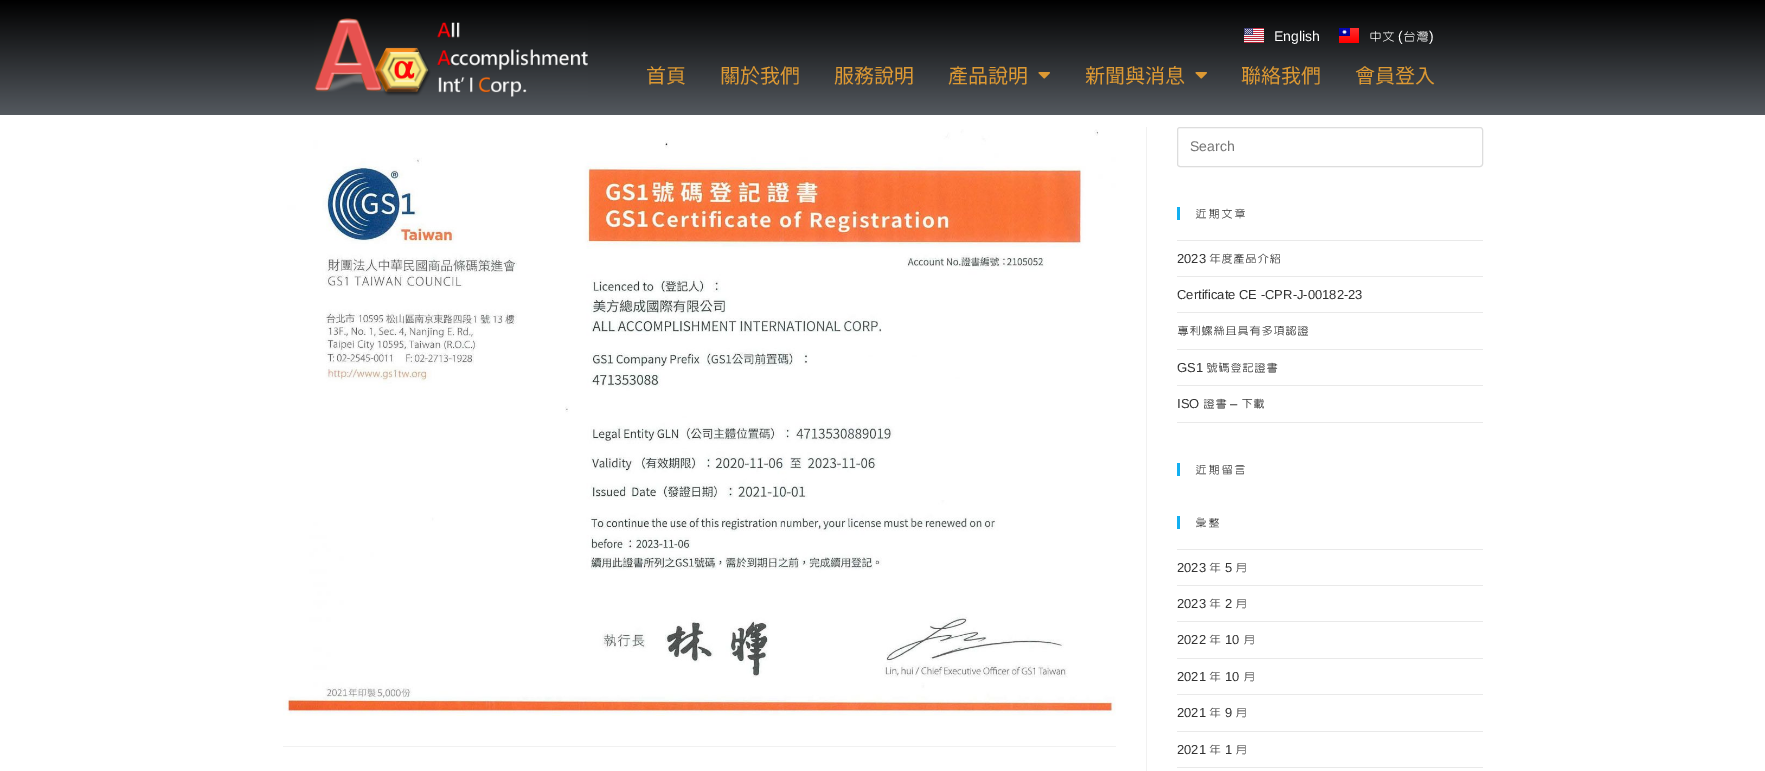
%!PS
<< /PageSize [1765 771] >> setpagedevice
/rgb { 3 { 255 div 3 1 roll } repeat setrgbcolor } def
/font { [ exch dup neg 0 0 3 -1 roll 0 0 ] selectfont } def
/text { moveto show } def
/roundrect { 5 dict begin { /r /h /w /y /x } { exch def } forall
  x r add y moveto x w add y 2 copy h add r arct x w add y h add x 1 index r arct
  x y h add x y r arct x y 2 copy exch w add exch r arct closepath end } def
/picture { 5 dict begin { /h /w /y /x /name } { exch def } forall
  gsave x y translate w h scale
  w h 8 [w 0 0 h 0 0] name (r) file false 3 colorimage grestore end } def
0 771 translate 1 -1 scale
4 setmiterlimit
255 255 255 rgb
0 0 1765 771 rectfill
gsave 0 0 moveto 1765 0 rlineto 0 115 rlineto -1765 0 rlineto closepath clip newpath
<< /ShadingType 2 /ColorSpace /DeviceRGB /Coords [883 0 883 115] /Extend [true true] /Function << /FunctionType 2 /Domain [0 1] /C0 [0 0 0] /C1 [0.329 0.349 0.373] /N 1 >> >> shfill grestore
(img_01.rgb) 314 18 274 79 picture
(img_02.rgb) 1244 28 20 15 picture
(img_03.rgb) 1339 28 20 15 picture
(img_04.rgb) 1038 72 12 7 picture
(img_04.rgb) 1195 72 12 7 picture
241 241 241 rgb
1146 127 1 644 rectfill
(img_05.rgb) 283 129 833 587 picture
283 746 833 1 rectfill
221 221 221 rgb
1177.5 127.5 305 39 2.5 roundrect stroke
19 175 240 rgb
1177 207 3 13 rectfill
233 233 233 rgb
1177 240 306 1 rectfill
1177 276 306 1 rectfill
1177 312 306 1 rectfill
1177 349 306 1 rectfill
1177 385 306 1 rectfill
1177 422 306 1 rectfill
19 175 240 rgb
1177 463 3 13 rectfill
1177 516 3 13 rectfill
233 233 233 rgb
1177 549 306 1 rectfill
1177 585 306 1 rectfill
1177 621 306 1 rectfill
1177 658 306 1 rectfill
1177 694 306 1 rectfill
1177 731 306 1 rectfill
1177 767 306 1 rectfill
/LiberationSans-Regular 14 font
255 255 255 rgb
(English) 1274 41 text
/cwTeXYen-Medium 14 font
(中文) 1369 41 text
/LiberationSans-Regular 14 font
(\() 1398 41 text
/cwTeXYen-Medium 14 font
(台灣) 1403 41 text
/LiberationSans-Regular 14 font
(\)) 1429 41 text
/NotoSansJP-Regular 20 font
221 153 51 rgb
(首頁) 646 83 text
(關於我們) 720 83 text
(服務說明) 834 83 text
(產品說明) 948 83 text
(新聞與消息) 1085 83 text
(聯絡我們) 1241 83 text
(會員登入) 1355 83 text
/LiberationSans-Regular 14 font
117 117 117 rgb
(Search) 1190 151 text
/cwTeXYen-Medium 13 font
51 51 51 rgb
1195 218 moveto 1 0 (近期文章) ashow
/LiberationSans-Regular 13 font
(2023) 1177 263 text
/cwTeXYen-Medium 13 font
(年度產品介紹) 1209 263 text
/LiberationSans-Regular 13 font
(Certificate CE -CPR-J-00182-23) 1177 299 text
/cwTeXYen-Medium 13 font
(專利螺絲且具有多項認證) 1177 335 text
/LiberationSans-Regular 13 font
(GS1) 1177 372 text
/cwTeXYen-Medium 13 font
(號碼登記證書) 1206 372 text
/LiberationSans-Regular 13 font
(ISO) 1177 408 text
/cwTeXYen-Medium 13 font
(證書) 1203 408 text
/LiberationSans-Regular 13 font
(–) 1230 408 text
/cwTeXYen-Medium 13 font
(下載) 1241 408 text
1195 474 moveto 1 0 (近期留言) ashow
1195 527 moveto 1 0 (彙整) ashow
/LiberationSans-Regular 13 font
(2023) 1177 572 text
/cwTeXYen-Medium 13 font
(年) 1209 572 text
/LiberationSans-Regular 13 font
(5) 1225 572 text
/cwTeXYen-Medium 13 font
(月) 1235 572 text
/LiberationSans-Regular 13 font
(2023) 1177 608 text
/cwTeXYen-Medium 13 font
(年) 1209 608 text
/LiberationSans-Regular 13 font
(2) 1225 608 text
/cwTeXYen-Medium 13 font
(月) 1235 608 text
/LiberationSans-Regular 13 font
(2022) 1177 644 text
/cwTeXYen-Medium 13 font
(年) 1209 644 text
/LiberationSans-Regular 13 font
(10) 1225 644 text
/cwTeXYen-Medium 13 font
(月) 1243 644 text
/LiberationSans-Regular 13 font
(2021) 1177 681 text
/cwTeXYen-Medium 13 font
(年) 1209 681 text
/LiberationSans-Regular 13 font
(10) 1225 681 text
/cwTeXYen-Medium 13 font
(月) 1243 681 text
/LiberationSans-Regular 13 font
(2021) 1177 717 text
/cwTeXYen-Medium 13 font
(年) 1209 717 text
/LiberationSans-Regular 13 font
(9) 1225 717 text
/cwTeXYen-Medium 13 font
(月) 1235 717 text
/LiberationSans-Regular 13 font
(2021) 1177 754 text
/cwTeXYen-Medium 13 font
(年) 1209 754 text
/LiberationSans-Regular 13 font
(1) 1225 754 text
/cwTeXYen-Medium 13 font
(月) 1235 754 text
showpage
